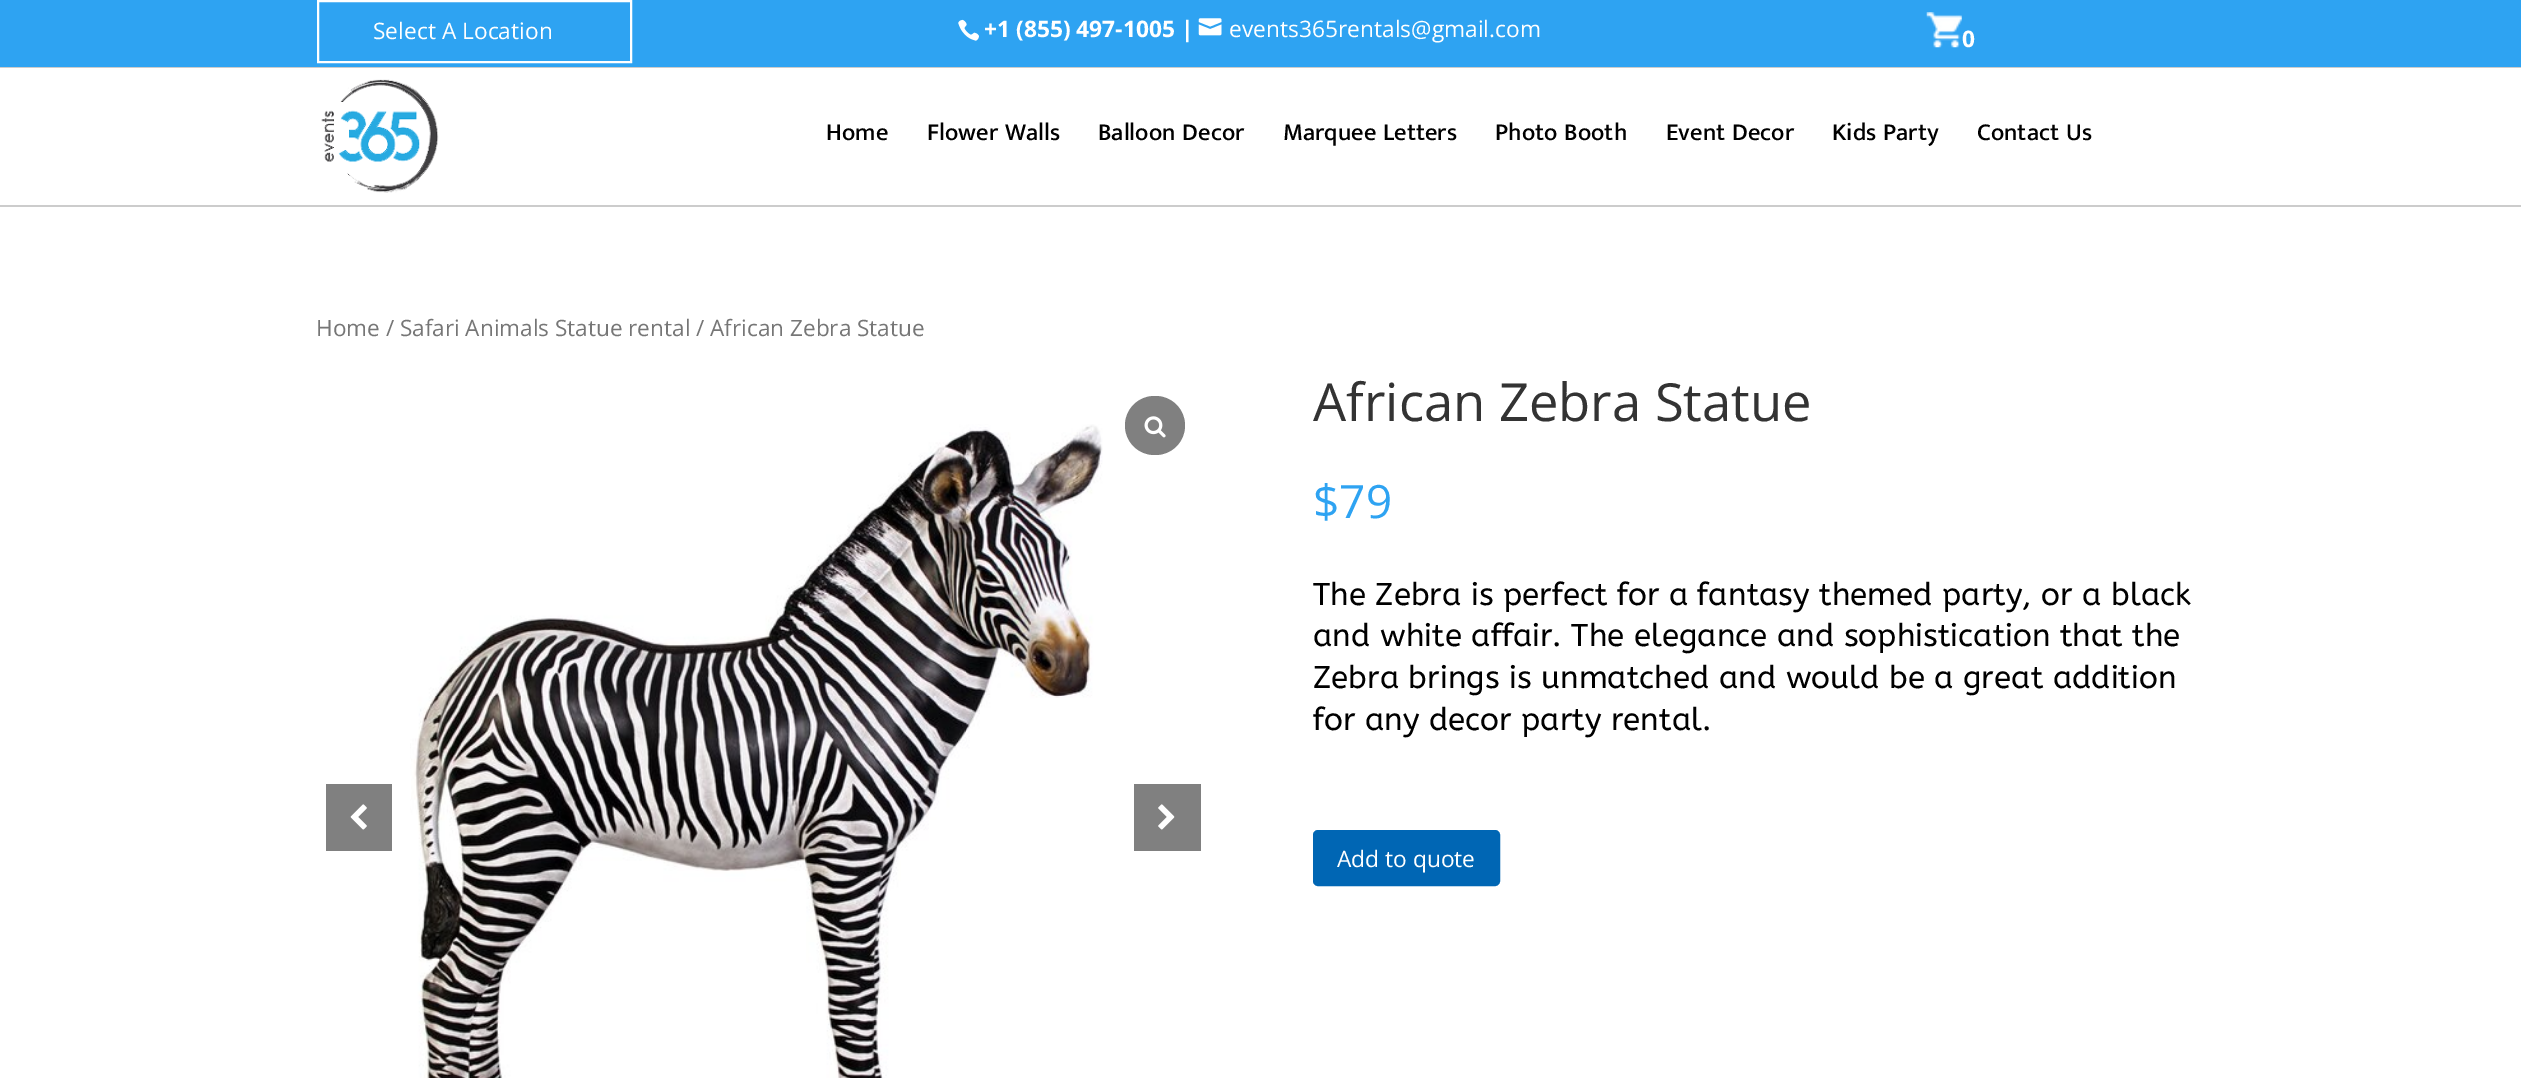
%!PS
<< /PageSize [2521 1078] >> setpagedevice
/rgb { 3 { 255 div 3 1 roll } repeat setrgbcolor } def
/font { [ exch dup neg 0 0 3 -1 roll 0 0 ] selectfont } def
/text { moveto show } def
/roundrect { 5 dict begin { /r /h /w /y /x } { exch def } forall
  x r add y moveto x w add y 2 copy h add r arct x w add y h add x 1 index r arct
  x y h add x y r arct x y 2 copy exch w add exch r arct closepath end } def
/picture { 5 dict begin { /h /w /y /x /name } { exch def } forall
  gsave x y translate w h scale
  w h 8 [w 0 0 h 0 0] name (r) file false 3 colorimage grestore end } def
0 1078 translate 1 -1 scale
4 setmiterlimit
255 255 255 rgb
0 0 2521 1078 rectfill
46 163 242 rgb
0 0 2521 67 rectfill
204 204 204 rgb
0 67 2521 1 rectfill
255 255 255 rgb
2 setlinewidth
318 1 313 61 rectstroke
(img_01.rgb) 958 19 21 22 picture
(img_02.rgb) 1198 18 24 18 picture
(img_03.rgb) 1926 12 36 36 picture
204 204 204 rgb
0 205 2521 2 rectfill
(img_04.rgb) 321 79 118 114 picture
128 128 128 rgb
326 784 66 67 rectfill
(img_05.rgb) 350 804 17 26 picture
(img_06.rgb) 410 424 693 654 picture
1125 396 60 59 29.5 roundrect fill
(img_07.rgb) 1144 416 22 22 picture
1134 784 67 67 rectfill
(img_08.rgb) 1158 804 17 26 picture
0 102 180 rgb
1314 831 185 54 4 roundrect gsave fill grestore
stroke
/OpenSans-Regular 22.75 font
255 255 255 rgb
(Select A Location) 373 39 text
/OpenSans-Bold 22.75 font
(+1 \(855\) 497-1005 |) 984 37 text
/OpenSans-Regular 22.75 font
(events365rentals@gmail.com) 1229 37 text
/OpenSans-Bold 22.75 font
(0) 1962 47 text
/MuktaMalar-Medium 24.5 font
0 0 0 rgb
(Home) 826 140 text
(Flower Walls) 927 140 text
(Balloon Decor) 1098 140 text
(Marquee Letters) 1283 140 text
(Photo Booth) 1495 140 text
(Event Decor) 1666 140 text
(Kids Party) 1832 140 text
(Contact Us) 1977 140 text
/OpenSans-Regular 22.55 font
118 118 118 rgb
(Home / Safari Animals Statue rental / African Zebra Statue) 316 336 text
/OpenSans-Regular 52.5 font
51 51 51 rgb
(African Zebra Statue) 1313 421 text
/OpenSans-Regular 46 font
46 163 242 rgb
($79) 1313 518 text
/ABeeZee-Regular 31.5 font
0 0 0 rgb
(The Zebra is perfect for a fantasy themed party, or a black) 1313 605 text
(and white affair. The elegance and sophistication that the) 1313 646 text
(Zebra brings is unmatched and would be a great addition) 1313 688 text
(for any decor party rental.) 1313 730 text
/OpenSans-Regular 22.75 font
255 255 255 rgb
(Add to quote) 1337 867 text
showpage
